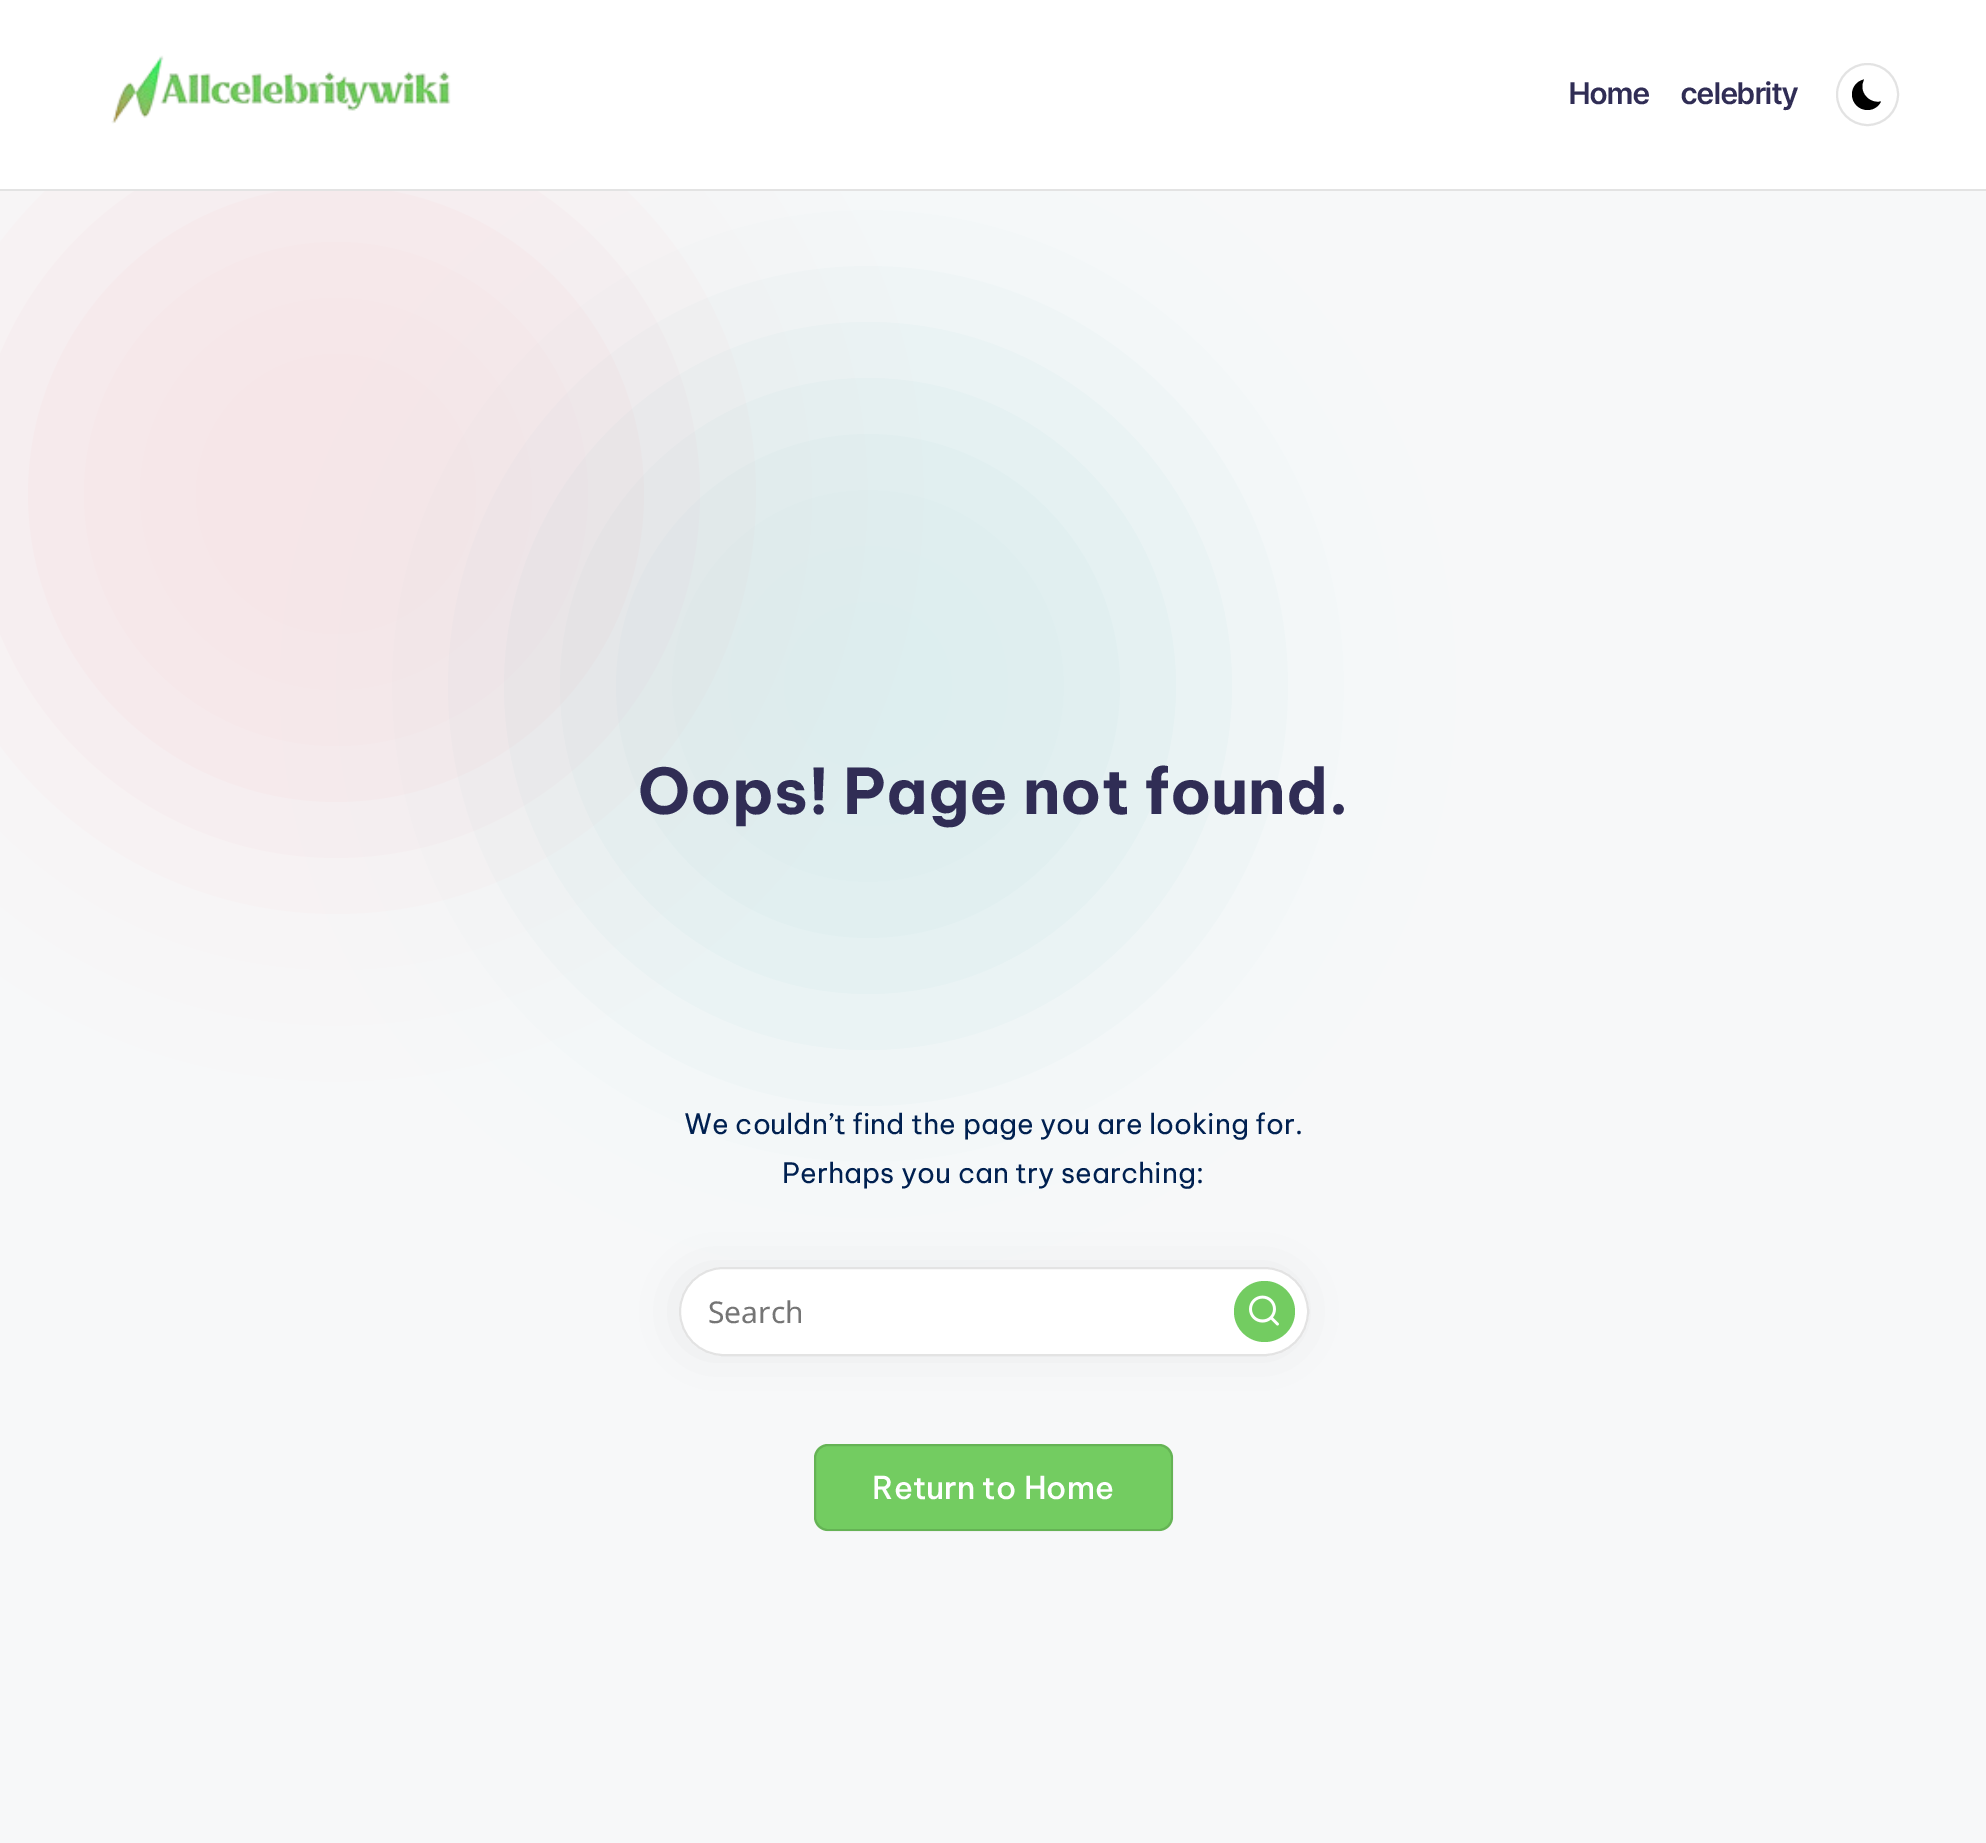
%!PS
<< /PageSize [1986 1843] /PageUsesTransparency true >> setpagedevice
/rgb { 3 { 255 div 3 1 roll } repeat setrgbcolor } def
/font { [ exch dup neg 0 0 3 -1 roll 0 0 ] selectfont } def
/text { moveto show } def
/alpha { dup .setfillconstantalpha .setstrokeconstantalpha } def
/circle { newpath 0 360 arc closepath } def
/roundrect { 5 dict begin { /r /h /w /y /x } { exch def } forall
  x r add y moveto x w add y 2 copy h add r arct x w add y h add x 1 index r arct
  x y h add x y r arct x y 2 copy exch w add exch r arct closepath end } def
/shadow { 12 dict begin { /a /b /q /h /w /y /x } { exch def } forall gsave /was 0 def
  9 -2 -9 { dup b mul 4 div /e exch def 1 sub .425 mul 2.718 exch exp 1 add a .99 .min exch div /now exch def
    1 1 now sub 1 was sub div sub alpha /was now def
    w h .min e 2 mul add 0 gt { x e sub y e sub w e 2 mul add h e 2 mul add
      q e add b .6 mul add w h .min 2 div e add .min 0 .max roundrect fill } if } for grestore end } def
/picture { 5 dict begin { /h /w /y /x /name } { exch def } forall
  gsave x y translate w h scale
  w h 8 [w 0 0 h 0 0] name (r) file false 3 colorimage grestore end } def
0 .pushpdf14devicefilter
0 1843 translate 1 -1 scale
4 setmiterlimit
247 248 249 rgb
0 0 1986 1843 rectfill
245 229 231 rgb
0 158 672 672 336 112 1 shadow
4 134 139 rgb
532 350 672 672 336 112 0.1 shadow
255 255 255 rgb
0 0 1986 189 rectfill
227 227 227 rgb
0 189 1986 2 rectfill
(img_01.rgb) 111 55 340 69 picture
2 setlinewidth
1867.5 94.5 30.5 circle stroke
0 0 0 rgb
1881 101.5 moveto -12.5 2.5 -23 -10 -17 -22 rcurveto -7 1.5 -12 7.5 -12 15 rcurveto 0 8.5 7 15.5 15.5 15.5 rcurveto 6 0 11 -3.5 13.5 -8.5 rcurveto closepath fill
702 1295 574 33 16.5 28 0.15 shadow
255 255 255 rgb
679 1267 630 89 44.5 roundrect fill
0.4 alpha
185 185 185 rgb
680 1268 628 87 43.5 roundrect stroke
1 alpha
115 204 97 rgb
1264.5 1311.5 30.5 circle fill
(img_02.rgb) 1249 1295 30 31 picture
814 1444 359 87 14 roundrect fill
0.12 alpha
0 0 0 rgb
815 1445 357 85 13 roundrect stroke
/InterTight-SemiBold 30 font
1 alpha
48 45 85 rgb
(Home) 1569 104 text
(celebrity) 1681 104 text
/BeVietnamPro-Bold 63 font
(Oops! Page not found.) 638 814 text
/BeVietnamPro-Regular 28 font
0 32 80 rgb
(We couldn’t find the page you are looking for.) 684 1134 text
(Perhaps you can try searching:) 782 1183 text
/NotoSans-Regular 30 font
117 117 117 rgb
(Search) 708 1323 text
/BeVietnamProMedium-Medium 31.5 font
255 255 255 rgb
(Return to Home) 872 1499 text
.poppdf14devicefilter showpage
